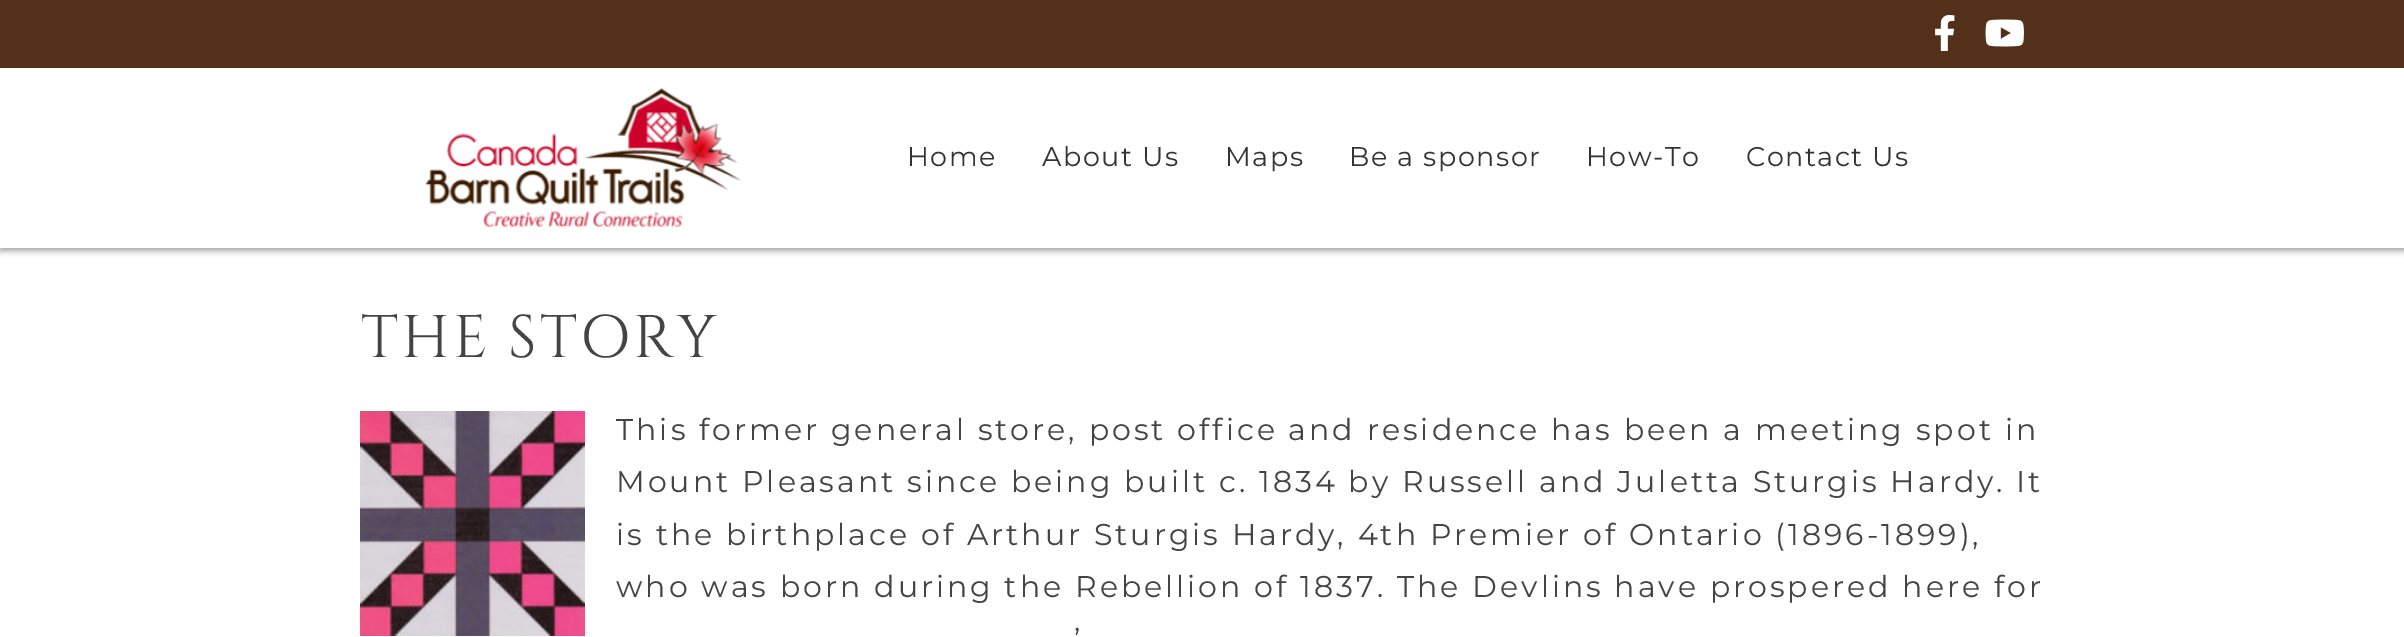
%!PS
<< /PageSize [2404 637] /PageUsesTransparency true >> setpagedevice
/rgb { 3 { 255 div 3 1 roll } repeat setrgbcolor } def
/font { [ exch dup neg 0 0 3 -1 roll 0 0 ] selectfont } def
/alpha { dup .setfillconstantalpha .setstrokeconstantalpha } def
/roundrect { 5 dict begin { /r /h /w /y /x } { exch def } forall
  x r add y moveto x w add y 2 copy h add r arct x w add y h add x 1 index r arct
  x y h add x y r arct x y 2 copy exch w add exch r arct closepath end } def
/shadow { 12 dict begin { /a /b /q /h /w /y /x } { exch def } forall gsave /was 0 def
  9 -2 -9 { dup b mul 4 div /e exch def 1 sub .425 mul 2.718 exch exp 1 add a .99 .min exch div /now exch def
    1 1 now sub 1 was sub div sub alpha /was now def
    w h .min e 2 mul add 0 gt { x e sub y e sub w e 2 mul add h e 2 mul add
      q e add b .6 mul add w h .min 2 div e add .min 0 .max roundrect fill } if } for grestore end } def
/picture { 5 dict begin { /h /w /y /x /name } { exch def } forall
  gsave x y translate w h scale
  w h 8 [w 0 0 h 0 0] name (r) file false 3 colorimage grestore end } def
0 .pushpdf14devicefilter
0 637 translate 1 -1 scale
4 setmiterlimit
255 255 255 rgb
0 0 2404 637 rectfill
0 0 0 rgb
0 3 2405 248 0 3 0.35 shadow
255 255 255 rgb
0 68 2404 180 rectfill
83 48 25 rgb
0 0 2404 68 rectfill
(img_01.rgb) 1935 15 20 36 picture
(img_02.rgb) 1985 19 39 28 picture
(img_03.rgb) 425 88 317 139 picture
(img_04.rgb) 360 411 225 225 picture
/Montserrat-Regular 27 font
51 51 51 rgb
907 166 moveto 1.5 0 (Home) ashow
1042 166 moveto 1.5 0 (About Us) ashow
1225 166 moveto 1.5 0 (Maps) ashow
1349 166 moveto 1.5 0 (Be a sponsor) ashow
1586 166 moveto 1.5 0 (How-To) ashow
1746 166 moveto 1.5 0 (Contact Us) ashow
/Cinzel-Regular 60 font
68 68 68 rgb
361 357 moveto 3 0 (THE STORY) ashow
/Montserrat-Regular 30 font
616 440 moveto 3 0 (This former general store, post office and residence has been a meeting spot in) ashow
616 492 moveto 3 0 (Mount Pleasant since being built c. 1834 by Russell and Juletta Sturgis Hardy. It) ashow
616 545 moveto 3 0 (is the birthplace of Arthur Sturgis Hardy, 4th Premier of Ontario \(1896-1899\),) ashow
616 597 moveto 3 0 (who was born during the Rebellion of 1837. The Devlins have prospered here for) ashow
1074 650 moveto 3 0 (’) ashow
.poppdf14devicefilter showpage
